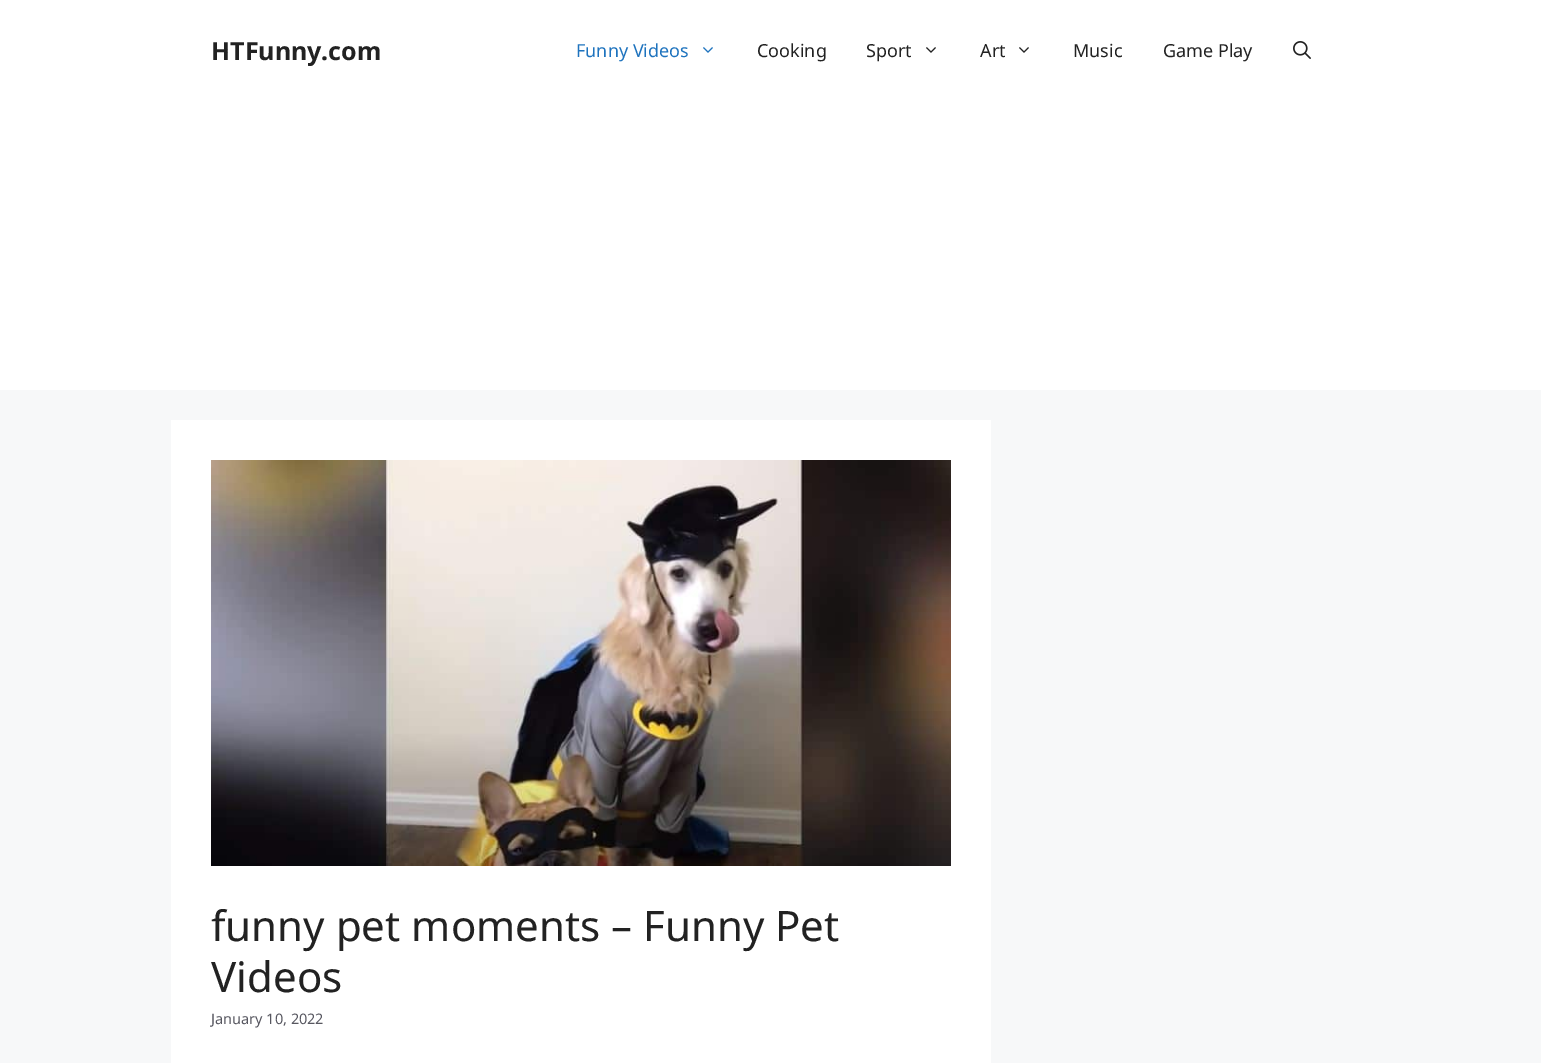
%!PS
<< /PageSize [1541 1063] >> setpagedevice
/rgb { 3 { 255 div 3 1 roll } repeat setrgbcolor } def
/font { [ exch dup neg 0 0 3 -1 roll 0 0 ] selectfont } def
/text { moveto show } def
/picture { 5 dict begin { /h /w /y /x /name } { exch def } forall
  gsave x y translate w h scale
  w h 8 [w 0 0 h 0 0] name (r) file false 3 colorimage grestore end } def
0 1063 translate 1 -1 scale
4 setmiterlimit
247 248 249 rgb
0 0 1541 1063 rectfill
255 255 255 rgb
0 0 1541 390 rectfill
(img_01.rgb) 703 47 10 6 picture
(img_02.rgb) 926 47 10 6 picture
(img_02.rgb) 1019 47 10 6 picture
(img_03.rgb) 1293 41 18 18 picture
171 420 820 643 rectfill
(img_04.rgb) 211 460 740 406 picture
/NotoSans-Bold 25 font
34 34 34 rgb
(HTFunny.com) 211 60 text
/NotoSans-Regular 18 font
30 115 190 rgb
(Funny Videos) 576 57 text
34 34 34 rgb
(Cooking) 757 57 text
(Sport) 866 57 text
(Art) 980 57 text
(Music) 1073 57 text
(Game Play) 1163 57 text
/NotoSans-Regular 42 font
(funny pet moments – Funny Pet) 211 941 text
(Videos) 211 992 text
/NotoSans-Regular 14.5 font
87 87 96 rgb
(January 10, 2022) 211 1024 text
showpage
